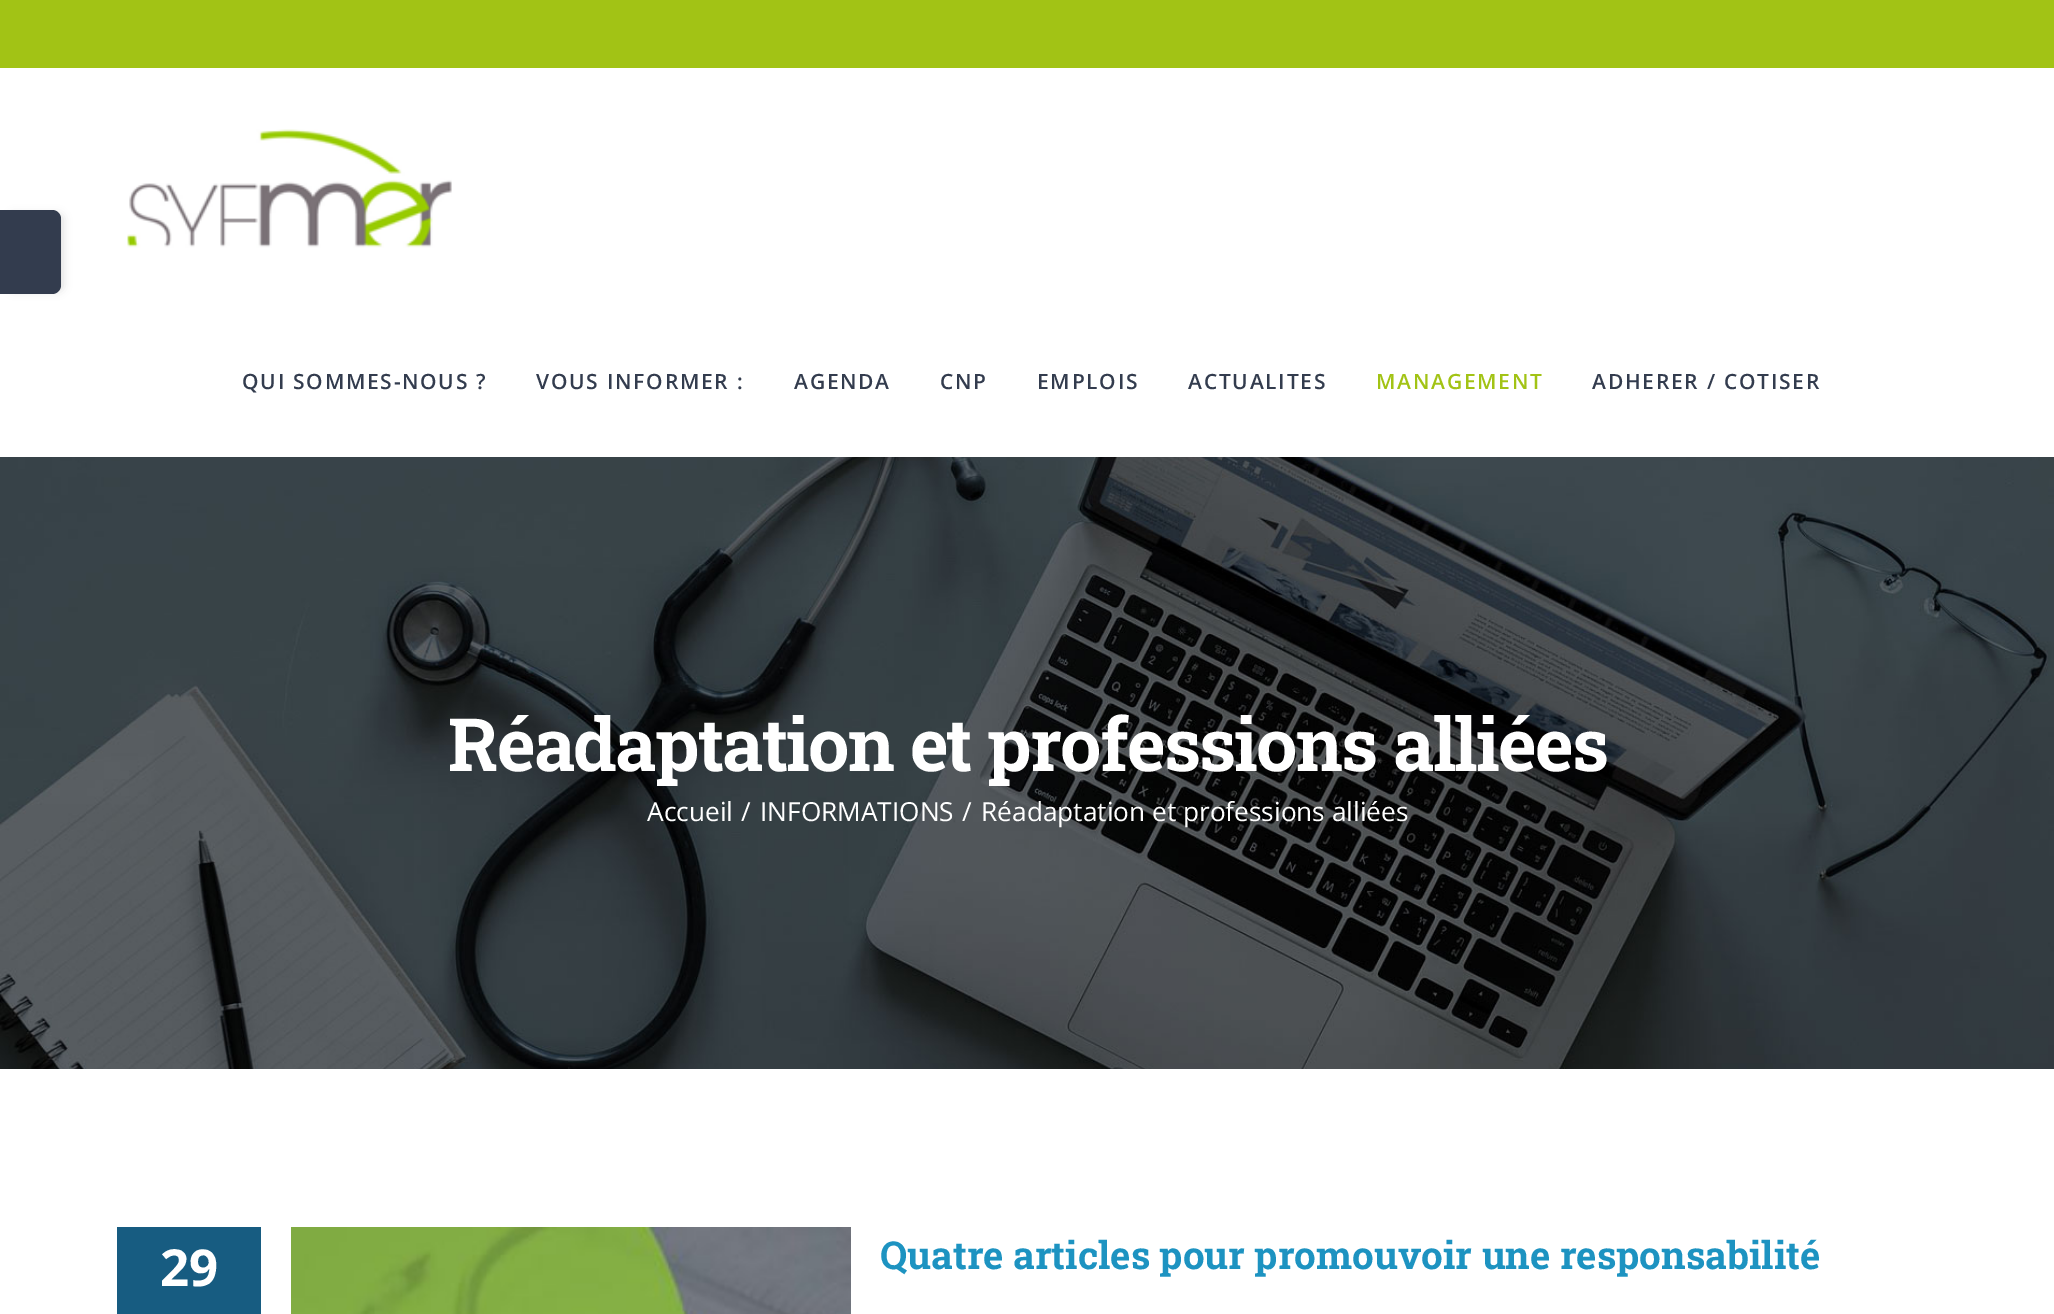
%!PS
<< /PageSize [2054 1314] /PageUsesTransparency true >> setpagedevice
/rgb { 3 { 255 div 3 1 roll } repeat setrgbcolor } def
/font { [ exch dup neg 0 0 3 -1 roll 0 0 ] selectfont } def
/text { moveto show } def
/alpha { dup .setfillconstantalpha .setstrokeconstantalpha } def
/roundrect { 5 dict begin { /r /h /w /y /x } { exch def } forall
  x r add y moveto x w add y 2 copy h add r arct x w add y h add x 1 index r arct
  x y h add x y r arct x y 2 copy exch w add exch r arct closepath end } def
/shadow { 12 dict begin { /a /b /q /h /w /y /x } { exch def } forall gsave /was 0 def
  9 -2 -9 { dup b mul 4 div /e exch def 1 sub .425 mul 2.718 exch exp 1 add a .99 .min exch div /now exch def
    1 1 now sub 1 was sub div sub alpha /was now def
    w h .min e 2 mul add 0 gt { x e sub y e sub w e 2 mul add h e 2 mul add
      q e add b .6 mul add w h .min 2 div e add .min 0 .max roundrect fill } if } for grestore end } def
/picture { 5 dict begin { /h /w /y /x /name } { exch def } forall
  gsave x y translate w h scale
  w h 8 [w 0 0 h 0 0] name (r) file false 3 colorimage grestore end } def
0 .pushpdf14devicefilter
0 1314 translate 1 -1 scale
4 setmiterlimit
255 255 255 rgb
0 0 2054 1314 rectfill
0 0 0 rgb
9 214 54 77 5 4.5 0.14 shadow
51 60 78 rgb
0 210 moveto 52 0 rlineto 5 0 9 4 9 9 rcurveto 0 66 rlineto 0 5 -4 9 -9 9 rcurveto -52 0 rlineto closepath fill
162 195 21 rgb
0 0 2054 68 rectfill
(img_01.rgb) 127 129 325 119 picture
(img_02.rgb) 0 457 2054 612 picture
23 92 129 rgb
117 1227 144 87 rectfill
(img_03.rgb) 291 1227 560 87 picture
/OpenSans-SemiBold 21 font
51 60 78 rgb
242 389 moveto 1.75 0 (QUI SOMMES-NOUS ?) ashow
536 389 moveto 1.75 0 (VOUS INFORMER :) ashow
794 389 moveto 1.75 0 (AGENDA) ashow
940 389 moveto 1.75 0 (CNP) ashow
1037 389 moveto 1.75 0 (EMPLOIS) ashow
1188 389 moveto 1.75 0 (ACTUALITES) ashow
162 195 21 rgb
1376 389 moveto 1.75 0 (MANAGEMENT) ashow
51 60 78 rgb
1592 389 moveto 1.75 0 (ADHERER / COTISER) ashow
/RobotoSlab-Bold 73.5 font
255 255 255 rgb
448 771 moveto -1.75 0 (Réadaptation et professions alliées) ashow
/OpenSans-Regular 26.25 font
(Accueil) 647 821 text
(/) 741 821 text
(INFORMATIONS) 760 821 text
(/) 962 821 text
(Réadaptation et professions alliées) 981 821 text
/OpenSans-Bold 51 font
(29) 160 1286 text
/RobotoSlab-Bold 38.5 font
29 147 193 rgb
(Quatre articles pour promouvoir une responsabilité) 880 1269 text
.poppdf14devicefilter showpage
